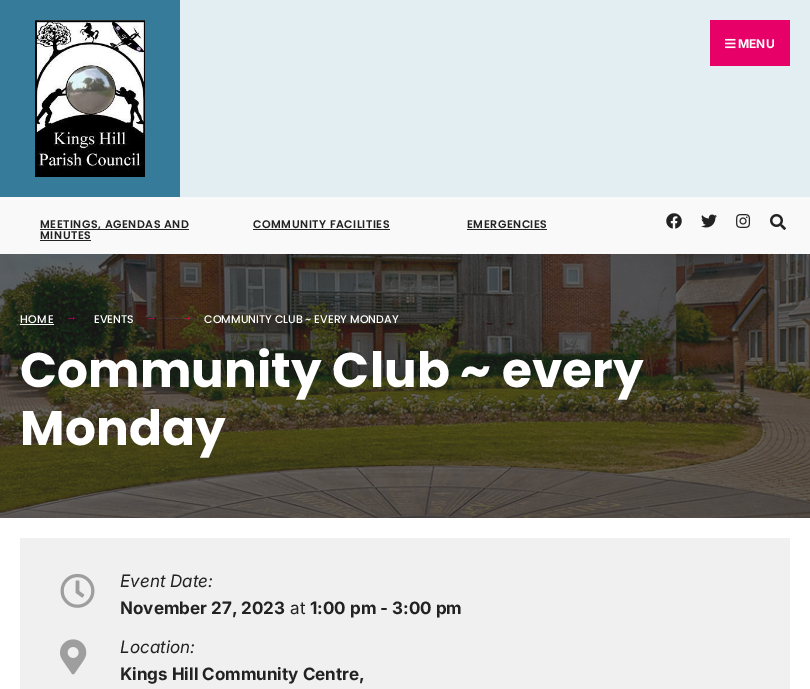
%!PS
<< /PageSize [810 689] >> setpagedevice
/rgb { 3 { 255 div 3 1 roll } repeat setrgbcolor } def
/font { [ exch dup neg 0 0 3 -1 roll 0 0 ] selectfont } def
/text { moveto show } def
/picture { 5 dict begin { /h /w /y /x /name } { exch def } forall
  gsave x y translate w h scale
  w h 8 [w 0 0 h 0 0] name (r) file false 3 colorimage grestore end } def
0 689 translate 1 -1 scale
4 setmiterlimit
255 255 255 rgb
0 0 810 689 rectfill
227 238 243 rgb
180 0 630 197 rectfill
54 124 154 rgb
0 0 180 197 rectfill
(img_01.rgb) 35 20 110 157 picture
230 0 103 rgb
710 20 80 46 rectfill
(img_02.rgb) 725 38 11 11 picture
249 249 249 rgb
0 197 810 57 rectfill
34 34 34 rgb
40 229 149 1 rectfill
40 240 51 1 rectfill
253 229 137 1 rectfill
467 229 80 1 rectfill
(img_03.rgb) 666 213 16 16 picture
(img_04.rgb) 701 214 16 14 picture
(img_05.rgb) 736 214 15 14 picture
(img_06.rgb) 770 214 16 16 picture
30 30 30 rgb
0 254 810 264 rectfill
(img_07.rgb) 0 254 810 264 picture
255 255 255 rgb
20 324 34 1 rectfill
240 240 240 rgb
20 538 770 151 rectfill
(img_08.rgb) 60 573 35 35 picture
(img_09.rgb) 60 639 27 36 picture
/Inter-Bold 12 font
255 255 255 rgb
(MENU) 738 48 text
/Poppins-SemiBold 11 font
34 34 34 rgb
40 228 moveto 0.5 0 (MEETINGS, AGENDAS AND) ashow
40 239 moveto 0.5 0 (MINUTES) ashow
253 228 moveto 0.5 0 (COMMUNITY FACILITIES) ashow
467 228 moveto 0.5 0 (EMERGENCIES) ashow
/Poppins-Medium 11 font
255 255 255 rgb
20 323 moveto 0.5 0 (HOME) ashow
/LiberationSerif-Regular 11 font
230 0 103 rgb
(→) 66 320 text
/Poppins-Medium 11 font
255 255 255 rgb
(EVENTS) 94 323 text
/LiberationSerif-Regular 11 font
230 0 103 rgb
(→) 146 320 text
(→) 181 320 text
/Poppins-Medium 11 font
255 255 255 rgb
(COMMUNITY CLUB ~ EVERY MONDAY) 204 323 text
/Poppins-Bold 48.6 font
20 387 moveto 0.1 0 (Community Club ~ every) ashow
20 445 moveto 0.1 0 (Monday) ashow
/Inter-Italic 17 font
34 34 34 rgb
(Event Date:) 120 587 text
/Inter-Bold 17 font
(November 27, 2023) 120 614 text
/Inter-Regular 17 font
(at) 290 614 text
/Inter-Bold 17 font
(1:00 pm - 3:00 pm) 310 614 text
/Inter-Italic 17 font
(Location:) 120 653 text
/Inter-Bold 17 font
(Kings Hill Community Centre,) 120 680 text
showpage
